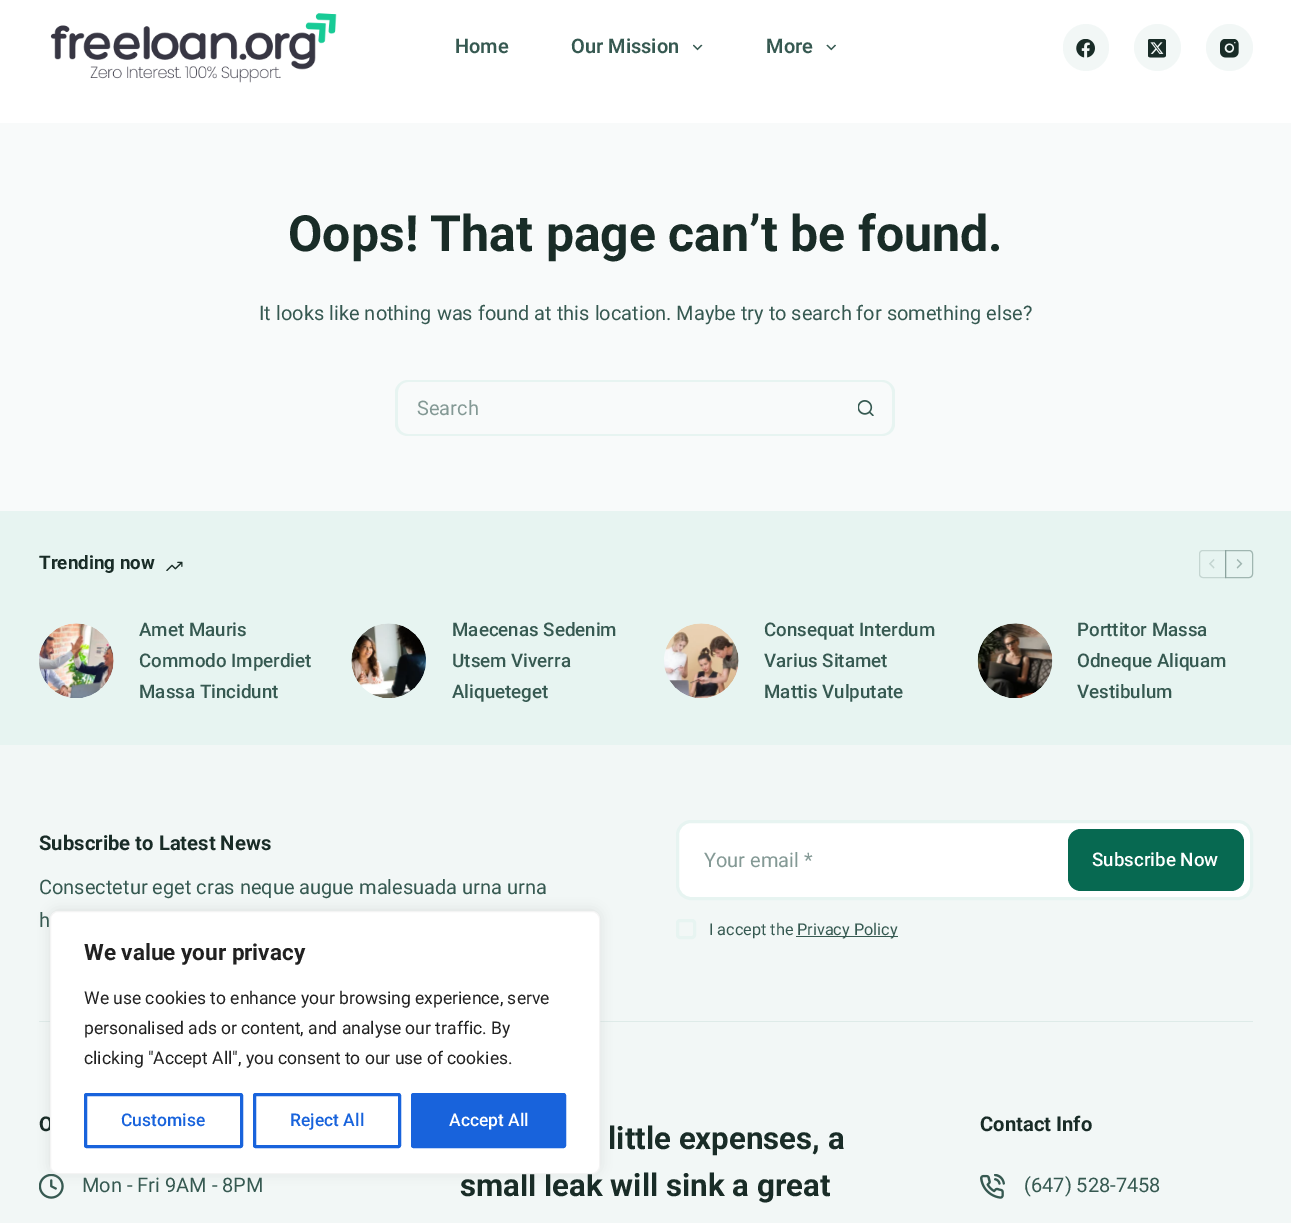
%!PS
<< /PageSize [1291 1223] /PageUsesTransparency true >> setpagedevice
/rgb { 3 { 255 div 3 1 roll } repeat setrgbcolor } def
/font { [ exch dup neg 0 0 3 -1 roll 0 0 ] selectfont } def
/text { moveto show } def
/alpha { dup .setfillconstantalpha .setstrokeconstantalpha } def
/circle { newpath 0 360 arc closepath } def
/roundrect { 5 dict begin { /r /h /w /y /x } { exch def } forall
  x r add y moveto x w add y 2 copy h add r arct x w add y h add x 1 index r arct
  x y h add x y r arct x y 2 copy exch w add exch r arct closepath end } def
/shadow { 12 dict begin { /a /b /q /h /w /y /x } { exch def } forall gsave /was 0 def
  9 -2 -9 { dup b mul 4 div /e exch def 1 sub .425 mul 2.718 exch exp 1 add a .99 .min exch div /now exch def
    1 1 now sub 1 was sub div sub alpha /was now def
    w h .min e 2 mul add 0 gt { x e sub y e sub w e 2 mul add h e 2 mul add
      q e add b .6 mul add w h .min 2 div e add .min 0 .max roundrect fill } if } for grestore end } def
/picture { 5 dict begin { /h /w /y /x /name } { exch def } forall
  gsave x y translate w h scale
  w h 8 [w 0 0 h 0 0] name (r) file false 3 colorimage grestore end } def
0 .pushpdf14devicefilter
0 1223 translate 1 -1 scale
4 setmiterlimit
248 250 250 rgb
0 0 1291 1223 rectfill
255 255 255 rgb
0 0 1291 123 rectfill
(img_01.rgb) 50 13 287 70 picture
(img_02.rgb) 693 44 10 7 picture
(img_03.rgb) 826 44 10 7 picture
242 247 246 rgb
1063 24 46 47 23 roundrect fill
(img_04.rgb) 1076 39 19 19 picture
1157.5 47.5 23.5 circle fill
(img_05.rgb) 1148 39 18 19 picture
1229.5 47.5 23.5 circle fill
(img_06.rgb) 1220 39 19 19 picture
231 244 241 rgb
408 380 moveto 431 0 rlineto 0 56 rlineto -431 0 rlineto -7 0 -13 -5 -13 -12 rcurveto 0 -32 rlineto 0 -6 6 -12 13 -12 rcurveto closepath 408 382 moveto 431 0 rlineto 0 52 rlineto -431 0 rlineto -6 0 -10 -5 -10 -10 rcurveto 0 -32 rlineto 0 -5 4 -10 10 -10 rcurveto closepath eofill
839 380 moveto 43 0 rlineto 7 0 13 6 13 12 rcurveto 0 32 rlineto 0 7 -6 12 -13 12 rcurveto -43 0 rlineto closepath 839 382 moveto 43 0 rlineto 6 0 10 5 10 10 rcurveto 0 32 rlineto 0 5 -4 10 -10 10 rcurveto -43 0 rlineto closepath eofill
(img_07.rgb) 858 400 16 16 picture
0 511 1291 234 rectfill
(img_08.rgb) 166 561 17 10 picture
196 213 209 rgb
1203 550.5 moveto 22.5 0 rlineto 0 27 rlineto -22.5 0 rlineto -2 0 -3.5 -1.5 -3.5 -3.5 rcurveto 0 -20 rlineto 0 -2 1.5 -3.5 3.5 -3.5 rcurveto closepath stroke
(img_09.rgb) 1209 559 6 10 picture
0.4 alpha
54 89 81 rgb
1225.5 550.5 moveto 23.5 0 rlineto 2 0 3.5 1.5 3.5 3.5 rcurveto 0 20 rlineto 0 2 -1.5 3.5 -3.5 3.5 rcurveto -23.5 0 rlineto closepath stroke
1 alpha
(img_10.rgb) 1236 559 7 10 picture
(img_11.rgb) 39 623 75 75 picture
(img_12.rgb) 351 623 75 75 picture
(img_13.rgb) 664 623 75 75 picture
(img_14.rgb) 977 623 76 75 picture
242 247 246 rgb
0 745 1291 478 rectfill
222 235 232 rgb
39 1021 1214 1 rectfill
255 255 255 rgb
677.5 821.5 574 77 13.5 roundrect gsave fill grestore
231 244 241 rgb
3 setlinewidth
stroke
7 105 81 rgb
1068 829 176 62 13 roundrect fill
231 244 241 rgb
677.5 920.5 17 17 2.5 roundrect stroke
54 89 81 rgb
796 936 102 1 rectfill
(img_15.rgb) 39 1174 25 25 picture
(img_16.rgb) 980 1174 25 25 picture
172 171 171 rgb
50 910 550 263 8 6 0.3 shadow
/Roboto-SemiBold 20 font
54 89 81 rgb
(Home) 455 53 text
(Our Mission) 571 53 text
(More) 766 53 text
/Roboto-Bold 50 font
25 44 39 rgb
(Oops! That page can’t be found.) 288 251 text
/Roboto-Regular 20 font
54 89 81 rgb
(It looks like nothing was found at this location. Maybe try to search for something else?) 259 320 text
132 153 149 rgb
(Search) 417 415 text
/Roboto-Bold 18.75 font
25 44 39 rgb
(Trending now) 39 569 text
/Roboto-Medium 18.75 font
54 89 81 rgb
(Amet Mauris) 139 636 text
(Commodo Imperdiet) 139 667 text
(Massa Tincidunt) 139 698 text
(Maecenas Sedenim) 452 636 text
(Utsem Viverra) 452 667 text
(Aliqueteget) 452 698 text
(Consequat Interdum) 764 636 text
(Varius Sitamet) 764 667 text
(Mattis Vulputate) 764 698 text
(Porttitor Massa) 1077 636 text
(Odneque Aliquam) 1077 667 text
(Vestibulum) 1077 698 text
/Roboto-Bold 20.25 font
25 44 39 rgb
(Subscribe to Latest News) 39 850 text
/Roboto-Regular 20 font
54 89 81 rgb
(Consectetur eget cras neque augue malesuada urna urna) 39 894 text
(h) 39 927 text
132 153 149 rgb
(Your email *) 704 867 text
/Roboto-Medium 18.75 font
255 255 255 rgb
(Subscribe Now) 1092 866 text
/Roboto-Regular 16.25 font
54 89 81 rgb
(I accept the) 709 935 text
(Privacy Policy) 797 935 text
/Roboto-Bold 20.25 font
25 44 39 rgb
(O) 39 1131 text
/Roboto-Regular 20 font
54 89 81 rgb
(Mon - Fri 9AM - 8PM) 82 1192 text
/Roboto-Bold 31.25 font
25 44 39 rgb
(little expenses, a) 608 1149 text
(small leak will sink a great) 460 1196 text
/Roboto-Bold 20.25 font
(Contact Info) 980 1131 text
/Roboto-Regular 20 font
54 89 81 rgb
(\(647\) 528-7458) 1024 1192 text
255 255 255 rgb
50.5 911.5 549 262 7.5 roundrect gsave fill grestore
244 244 244 rgb
1 setlinewidth
stroke
/Roboto-Bold 22.5 font
33 33 33 rgb
(We value your privacy) 84 960 text
/Roboto-Regular 17.5 font
(We use cookies to enhance your browsing experience, serve) 84 1004 text
(personalised ads or content, and analyse our traffic. By) 84 1034 text
(clicking "Accept All", you consent to our use of cookies.) 84 1064 text
24 99 220 rgb
3 setlinewidth
85.5 1094.5 156 52 1 roundrect stroke
/Roboto-Medium 17.5 font
(Customise) 121 1126 text
254.5 1094.5 145 52 1 roundrect stroke
(Reject All) 290 1126 text
412.5 1094.5 152 52 1 roundrect gsave fill grestore
stroke
255 255 255 rgb
(Accept All) 449 1126 text
.poppdf14devicefilter showpage
